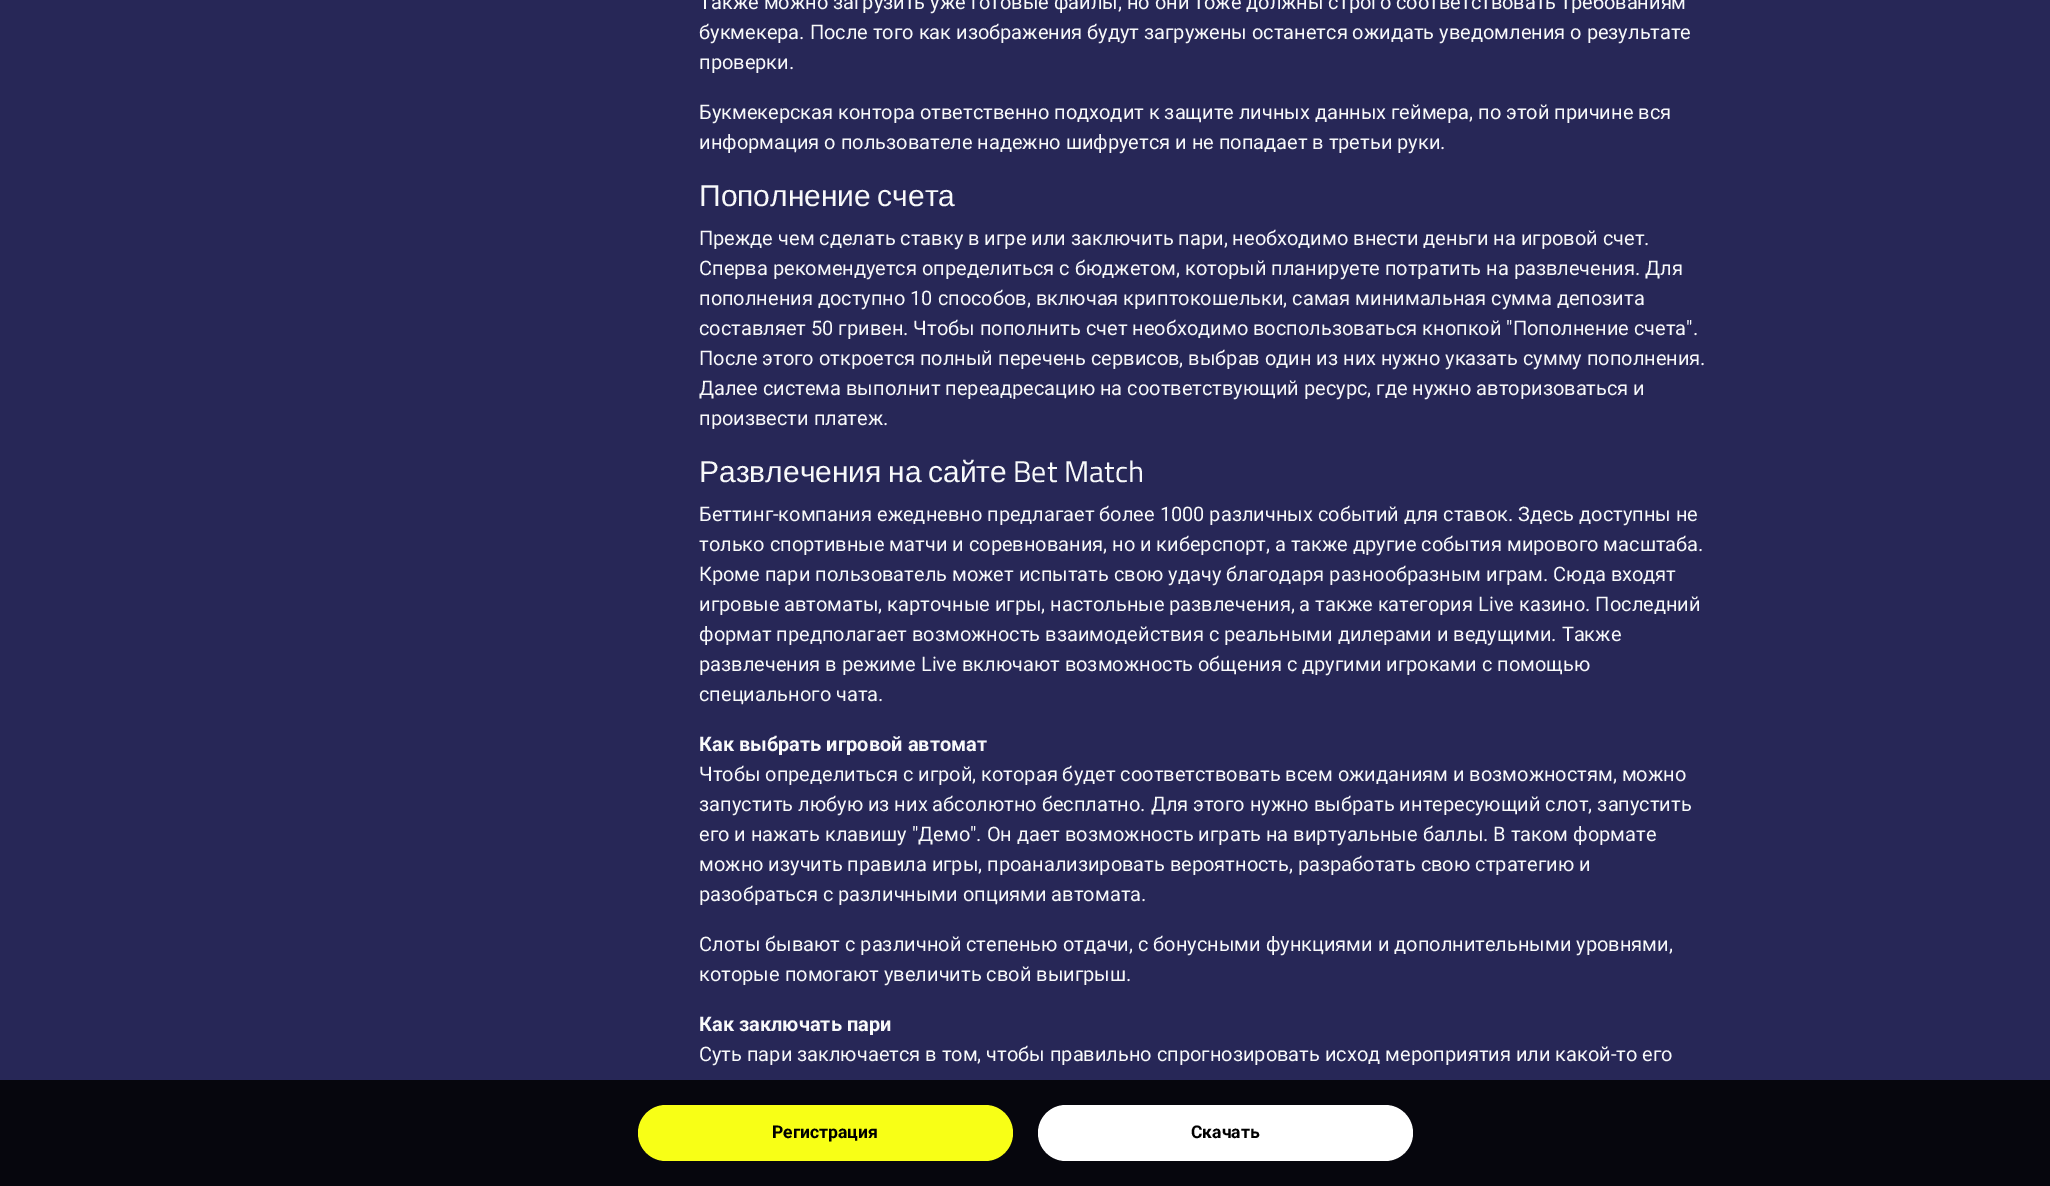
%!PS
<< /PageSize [2050 1186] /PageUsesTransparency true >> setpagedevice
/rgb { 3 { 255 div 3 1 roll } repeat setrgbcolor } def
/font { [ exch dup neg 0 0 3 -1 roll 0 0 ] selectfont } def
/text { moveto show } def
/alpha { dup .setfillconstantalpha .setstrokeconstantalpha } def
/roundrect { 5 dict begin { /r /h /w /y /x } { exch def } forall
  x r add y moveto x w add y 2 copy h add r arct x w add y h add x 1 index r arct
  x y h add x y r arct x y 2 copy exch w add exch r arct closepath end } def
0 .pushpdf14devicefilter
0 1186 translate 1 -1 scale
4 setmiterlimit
39 39 87 rgb
0 0 2050 1186 rectfill
0.85 alpha
0 0 0 rgb
0 1080 2050 106 rectfill
1 alpha
248 255 22 rgb
638 1105 375 56 28 roundrect fill
255 255 255 rgb
1038 1105 375 56 28 roundrect fill
/Roboto-Regular 20 font
248 249 250 rgb
(Также можно загрузить уже готовые файлы, но они тоже должны строго соответствовать требованиям) 699 9 text
(букмекера. После того как изображения будут загружены останется ожидать уведомления о результате) 699 39 text
(проверки.) 699 69 text
(Букмекерская контора ответственно подходит к защите личных данных геймера, по этой причине вся) 699 119 text
(информация о пользователе надежно шифруется и не попадает в третьи руки.) 699 149 text
/LiberationSans-Regular 30 font
699 206 moveto -2 0 32 (Пополнение счета) widthshow
/Roboto-Regular 20 font
(Прежде чем сделать ставку в игре или заключить пари, необходимо внести деньги на игровой счет.) 699 245 text
(Сперва рекомендуется определиться с бюджетом, который планируете потратить на развлечения. Для) 699 275 text
(пополнения доступно 10 способов, включая криптокошельки, самая минимальная сумма депозита) 699 305 text
(составляет 50 гривен. Чтобы пополнить счет необходимо воспользоваться кнопкой "Пополнение счета".) 699 335 text
(После этого откроется полный перечень сервисов, выбрав один из них нужно указать сумму пополнения.) 699 365 text
(Далее система выполнит переадресацию на соответствующий ресурс, где нужно авторизоваться и) 699 395 text
(произвести платеж.) 699 425 text
/LiberationSans-Regular 30 font
(Развлечения) 699 482 text
(на) 888 482 text
(сайте) 928 482 text
/TitilliumWeb-Regular 30 font
(Bet Match) 1013 482 text
/Roboto-Regular 20 font
(Беттинг-компания ежедневно предлагает более 1000 различных событий для ставок. Здесь доступны не) 699 521 text
(только спортивные матчи и соревнования, но и киберспорт, а также другие события мирового масштаба.) 699 551 text
(Кроме пари пользователь может испытать свою удачу благодаря разнообразным играм. Сюда входят) 699 581 text
(игровые автоматы, карточные игры, настольные развлечения, а также категория Live казино. Последний) 699 611 text
(формат предполагает возможность взаимодействия с реальными дилерами и ведущими. Также) 699 641 text
(развлечения в режиме Live включают возможность общения с другими игроками с помощью) 699 671 text
(специального чата.) 699 701 text
/Roboto-Bold 20 font
(Как выбрать игровой автомат) 699 751 text
/Roboto-Regular 20 font
(Чтобы определиться с игрой, которая будет соответствовать всем ожиданиям и возможностям, можно) 699 781 text
(запустить любую из них абсолютно бесплатно. Для этого нужно выбрать интересующий слот, запустить) 699 811 text
(его и нажать клавишу "Демо". Он дает возможность играть на виртуальные баллы. В таком формате) 699 841 text
(можно изучить правила игры, проанализировать вероятность, разработать свою стратегию и) 699 871 text
(разобраться с различными опциями автомата.) 699 901 text
(Слоты бывают с различной степенью отдачи, с бонусными функциями и дополнительными уровнями,) 699 951 text
(которые помогают увеличить свой выигрыш.) 699 981 text
/Roboto-Bold 20 font
(Как заключать пари) 699 1031 text
/Roboto-Regular 20 font
(Суть пари заключается в том, чтобы правильно спрогнозировать исход мероприятия или какой-то его) 699 1061 text
/Roboto-Bold 17.5 font
0 0 0 rgb
(Регистрация) 772 1138 text
(Скачать) 1191 1138 text
.poppdf14devicefilter showpage
